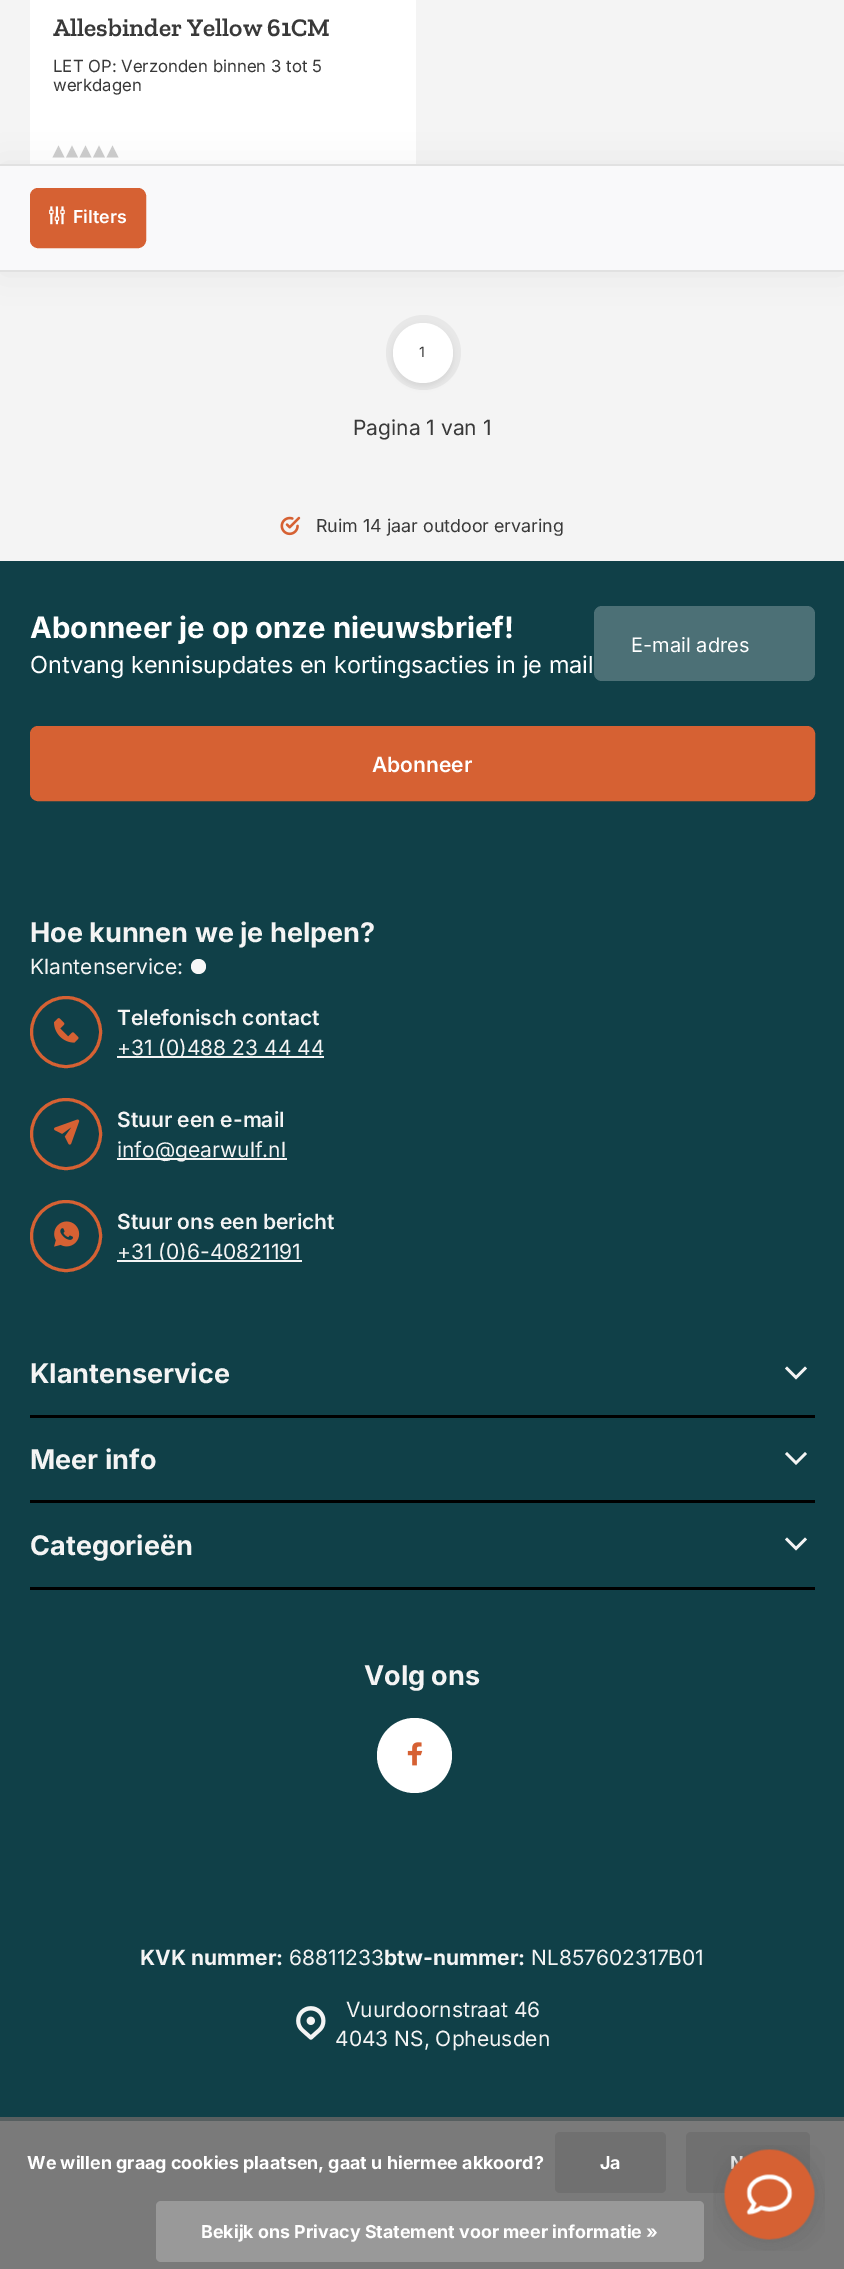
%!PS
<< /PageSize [844 2269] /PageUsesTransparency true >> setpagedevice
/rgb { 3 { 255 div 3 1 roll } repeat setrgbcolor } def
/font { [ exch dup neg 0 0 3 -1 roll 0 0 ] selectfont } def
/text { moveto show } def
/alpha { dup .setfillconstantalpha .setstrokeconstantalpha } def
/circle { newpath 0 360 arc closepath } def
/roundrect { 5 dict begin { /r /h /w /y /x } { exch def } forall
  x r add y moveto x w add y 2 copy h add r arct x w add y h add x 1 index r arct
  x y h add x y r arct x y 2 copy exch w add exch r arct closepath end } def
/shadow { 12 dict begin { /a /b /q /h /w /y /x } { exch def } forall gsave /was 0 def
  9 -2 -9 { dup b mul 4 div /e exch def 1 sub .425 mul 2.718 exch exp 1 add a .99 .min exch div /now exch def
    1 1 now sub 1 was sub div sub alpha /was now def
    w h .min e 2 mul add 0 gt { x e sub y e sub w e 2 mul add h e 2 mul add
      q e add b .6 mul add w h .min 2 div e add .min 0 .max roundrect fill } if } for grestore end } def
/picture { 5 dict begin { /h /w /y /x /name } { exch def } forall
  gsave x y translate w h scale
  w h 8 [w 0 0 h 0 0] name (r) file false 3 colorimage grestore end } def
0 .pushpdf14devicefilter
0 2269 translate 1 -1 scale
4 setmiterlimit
244 244 244 rgb
0 0 844 2269 rectfill
122 122 122 rgb
0 2121 844 148 rectfill
255 255 255 rgb
30 0 386 164 rectfill
206 206 206 rgb
64.5 157.5 moveto -12 0 rlineto 6 -12 rlineto closepath 78 157.5 moveto -12 0 rlineto 6 -12 rlineto closepath 91.5 157.5 moveto -12 0 rlineto 6 -12 rlineto closepath 105 157.5 moveto -12 0 rlineto 6 -12 rlineto closepath fill
118.5 157.5 moveto -12 0 rlineto 6 -12 rlineto closepath fill
232 232 232 rgb
423.5 352.5 37.5 circle fill
0 0 0 rgb
393 326 60 60 30 3 0.07 shadow
255 255 255 rgb
423 353 30 circle fill
0 0 0 rgb
0 165 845 108 0 19 0.05 shadow
249 249 250 rgb
0 166 844 104 rectfill
225 225 225 rgb
0 164 844 2 rectfill
0 270 844 2 rectfill
214 97 51 rgb
31.5 189.5 113 57 6.5 roundrect gsave fill grestore
3 setlinewidth
stroke
(img_01.rgb) 49 206 16 19 picture
(img_02.rgb) 280 516 21 20 picture
16 64 72 rgb
0 561 844 1556 rectfill
76 112 118 rgb
594 606 221 75 8 roundrect fill
214 97 51 rgb
31.5 727.5 782 72 6.5 roundrect gsave fill grestore
stroke
247 247 247 rgb
198.5 966.5 7.5 circle fill
214 97 51 rgb
66 1032 34.5 circle stroke
(img_03.rgb) 54 1018 25 25 picture
244 244 244 rgb
117 1056 207 2 rectfill
214 97 51 rgb
66 1134 34.5 circle stroke
(img_04.rgb) 54 1119 26 26 picture
244 244 244 rgb
117 1158 170 2 rectfill
214 97 51 rgb
66 1236 34.5 circle stroke
(img_05.rgb) 54 1221 26 26 picture
244 244 244 rgb
117 1260 185 2 rectfill
0 0 0 rgb
30 1415 785 3 rectfill
244 244 244 rgb
807 1368.5 moveto -2 -2 rlineto -9 9 rlineto -9 -9 rlineto -2 2 rlineto 11 11 rlineto closepath fill
0 0 0 rgb
30 1500 785 3 rectfill
244 244 244 rgb
807 1454 moveto -2 -2 rlineto -9 9 rlineto -9 -9 rlineto -2 2 rlineto 11 11 rlineto closepath fill
0 0 0 rgb
30 1587 785 3 rectfill
244 244 244 rgb
807 1539.5 moveto -2 -2 rlineto -9 9 rlineto -9 -9 rlineto -2 2 rlineto 11 11 rlineto closepath fill
87 95 96 rgb
0 2117 844 4 rectfill
255 255 255 rgb
414.5 1755.5 37.5 circle fill
(img_06.rgb) 407 1742 16 24 picture
(img_07.rgb) 296 2006 30 34 picture
112 112 112 rgb
555 2132 111 61 5 roundrect fill
686 2132 124 61 5 roundrect fill
153 153 153 rgb
156 2201 548 61 5 roundrect fill
(img_08.rgb) 713 2145 112 106 picture
gsave
53 0 348 57 rectclip
/ZillaSlab-SemiBold 25.5 font
57 57 57 rgb
(Allesbinder Yellow 61CM) 53 36 text
grestore
/Inter-Regular 16.75 font
57 57 57 rgb
(LET OP: Verzonden binnen 3 tot 5) 53 72 text
(werkdagen) 53 91 text
/Inter-SemiBold 17.85 font
255 255 255 rgb
(Filters) 73 223 text
/Inter-Regular 14 font
57 57 57 rgb
(1) 419 357 text
/Inter-Regular 21 font
(Pagina 1 van 1) 353 435 text
/Inter-Regular 17.85 font
(Ruim 14 jaar outdoor ervaring) 316 532 text
/Inter-Bold 29.4 font
255 255 255 rgb
(Abonneer je op onze nieuwsbrief!) 30 638 text
/Inter-Regular 23.5 font
(Ontvang kennisupdates en kortingsacties in je mail) 30 673 text
/Inter-Regular 20 font
(E-mail adres) 631 652 text
/Inter-SemiBold 21 font
(Abonneer) 372 772 text
/Inter-Bold 27 font
244 244 244 rgb
(Hoe kunnen we je helpen?) 30 942 text
/Inter-Regular 21 font
(Klantenservice:) 30 974 text
/Inter-SemiBold 21 font
(Telefonisch contact) 117 1025 text
/Inter-Regular 21 font
(+31 \(0\)488 23 44 44) 117 1055 text
/Inter-SemiBold 21 font
(Stuur een e-mail) 117 1127 text
/Inter-Regular 21 font
(info@gearwulf.nl) 117 1157 text
/Inter-SemiBold 21 font
(Stuur ons een bericht) 117 1229 text
/Inter-Regular 21 font
(+31 \(0\)6-40821191) 117 1259 text
/Inter-Bold 27 font
(Klantenservice) 30 1383 text
(Meer info) 30 1469 text
(Categorieën) 30 1555 text
(Volg ons) 364 1685 text
/Inter-Bold 21 font
(KVK nummer:) 140 1965 text
/Inter-Regular 21 font
(68811233) 289 1965 text
/Inter-Bold 21 font
(btw-nummer:) 384 1965 text
/Inter-Regular 21 font
(NL857602317B01) 531 1965 text
(Vuurdoornstraat 46) 346 2017 text
(4043 NS, Opheusden) 335 2046 text
/Inter-Bold 17.85 font
255 255 255 rgb
(We willen graag cookies plaatsen, gaat u hiermee akkoord?) 27 2169 text
(Ja) 600 2169 text
(Bekijk ons Privacy Statement voor meer informatie ») 201 2238 text
.poppdf14devicefilter showpage
